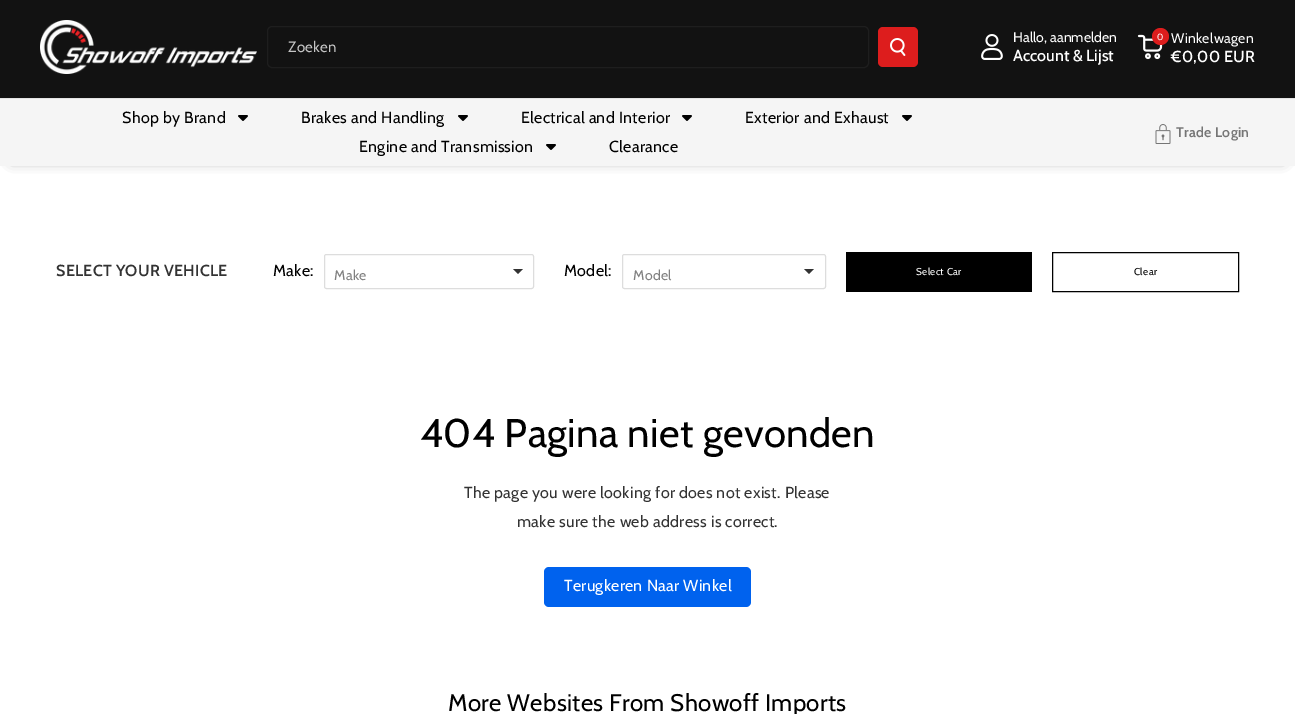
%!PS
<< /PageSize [1295 714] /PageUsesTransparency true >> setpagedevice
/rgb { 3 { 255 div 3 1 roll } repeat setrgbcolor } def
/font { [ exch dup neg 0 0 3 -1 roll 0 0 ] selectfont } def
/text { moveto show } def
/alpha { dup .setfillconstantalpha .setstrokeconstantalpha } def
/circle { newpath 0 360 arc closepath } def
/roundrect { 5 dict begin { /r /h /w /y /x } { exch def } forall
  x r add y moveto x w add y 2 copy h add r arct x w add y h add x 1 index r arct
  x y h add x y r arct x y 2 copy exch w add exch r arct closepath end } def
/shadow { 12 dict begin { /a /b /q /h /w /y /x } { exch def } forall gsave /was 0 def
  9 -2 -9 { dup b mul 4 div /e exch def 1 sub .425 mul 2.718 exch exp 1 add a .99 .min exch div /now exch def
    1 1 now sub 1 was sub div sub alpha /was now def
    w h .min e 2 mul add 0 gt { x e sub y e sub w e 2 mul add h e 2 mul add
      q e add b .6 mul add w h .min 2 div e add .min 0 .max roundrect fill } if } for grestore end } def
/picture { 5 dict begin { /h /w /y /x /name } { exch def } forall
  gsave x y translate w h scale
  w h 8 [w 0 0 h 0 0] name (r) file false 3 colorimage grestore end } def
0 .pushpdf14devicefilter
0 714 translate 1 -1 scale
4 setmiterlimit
255 255 255 rgb
0 0 1295 714 rectfill
18 18 18 rgb
12 18 1271 142 0 6 0.6 shadow
0 0 1295 98 rectfill
(img_01.rgb) 40 20 217 54 picture
30 30 30 rgb
267.5 26.5 601 41 4.5 roundrect stroke
221 29 29 rgb
878 27 40 40 5 roundrect fill
(img_02.rgb) 890 38 16 18 picture
(img_03.rgb) 981 34 22 26 picture
(img_04.rgb) 1137 34 26 26 picture
1160.5 36.5 8.5 circle fill
245 245 245 rgb
0 99 1295 67 rectfill
228 228 228 rgb
0 98 1295 1 rectfill
(img_05.rgb) 238 115 10 6 picture
(img_05.rgb) 458 115 10 6 picture
(img_05.rgb) 682 115 10 6 picture
(img_05.rgb) 902 115 10 6 picture
(img_05.rgb) 546 144 10 6 picture
(img_06.rgb) 1155 124 16 20 picture
221 221 221 rgb
324.5 254.5 209 34 2 roundrect stroke
51 51 51 rgb
513 269 moveto 10 0 rlineto -5 5 rlineto closepath fill
221 221 221 rgb
622.5 254.5 203 34 2 roundrect stroke
51 51 51 rgb
804 269 moveto 10 0 rlineto -5 5 rlineto closepath fill
0 0 0 rgb
846 252 186 40 rectfill
1052.5 252.5 186 39 rectstroke
0 98 238 rgb
544 567 207 40 5 roundrect fill
/Cabin-Regular 15 font
196 196 196 rgb
288 52 moveto 0.3 0 (Zoeken) ashow
/Cabin-Regular 14 font
255 255 255 rgb
(Hallo, aanmelden) 1013 42 text
/Cabin-Medium 16 font
(Account & Lijst) 1013 61 text
/Cabin-Regular 9 font
1157 40 moveto 0.3 0 (0) ashow
/Cabin-Regular 14 font
1171 43 moveto 0.3 0 (Winkelwagen) ashow
/Cabin-Medium 16 font
1171 62 moveto 0.3 0 (€0,00 EUR) ashow
/Cabin-Regular 16 font
0 0 0 rgb
122 123 moveto 0.3 0 (Shop by Brand) ashow
301 123 moveto 0.3 0 (Brakes and Handling) ashow
521 123 moveto 0.3 0 (Electrical and Interior) ashow
745 123 moveto 0.3 0 (Exterior and Exhaust) ashow
359 152 moveto 0.3 0 (Engine and Transmission) ashow
609 152 moveto 0.3 0 (Clearance) ashow
/Cabin-SemiBold 14 font
117 117 117 rgb
1176 137 moveto 0.3 0 (Trade Login) ashow
/Cabin-SemiBold 16 font
51 51 51 rgb
56 276 moveto 0.3 0 (SELECT YOUR VEHICLE) ashow
/Cabin-Regular 16 font
0 0 0 rgb
273 276 moveto 0.3 0 (Make:) ashow
/Cabin-Regular 14 font
128 128 128 rgb
334 280 moveto 0.3 0 (Make) ashow
/Cabin-Regular 16 font
0 0 0 rgb
564 276 moveto 0.3 0 (Model:) ashow
/Cabin-Regular 14 font
128 128 128 rgb
633 280 moveto 0.3 0 (Model) ashow
/Cabin-Regular 10 font
255 255 255 rgb
916 275 moveto 0.3 0 (Select Car) ashow
0 0 0 rgb
1134 275 moveto 0.3 0 (Clear) ashow
/Cabin-Regular 40 font
420 447 moveto 0.3 0 (404 Pagina niet gevonden) ashow
/Cabin-Regular 16 font
51 51 51 rgb
464 498 moveto 0.3 0 (The page you were looking for does not exist. Please) ashow
517 527 moveto 0.3 0 (make sure the web address is correct.) ashow
255 255 255 rgb
564 591 moveto 0.3 0 (Terugkeren Naar Winkel) ashow
/Cabin-Regular 24 font
0 0 0 rgb
448 711 moveto 0.3 0 (More Websites From Showoff Imports) ashow
.poppdf14devicefilter showpage
